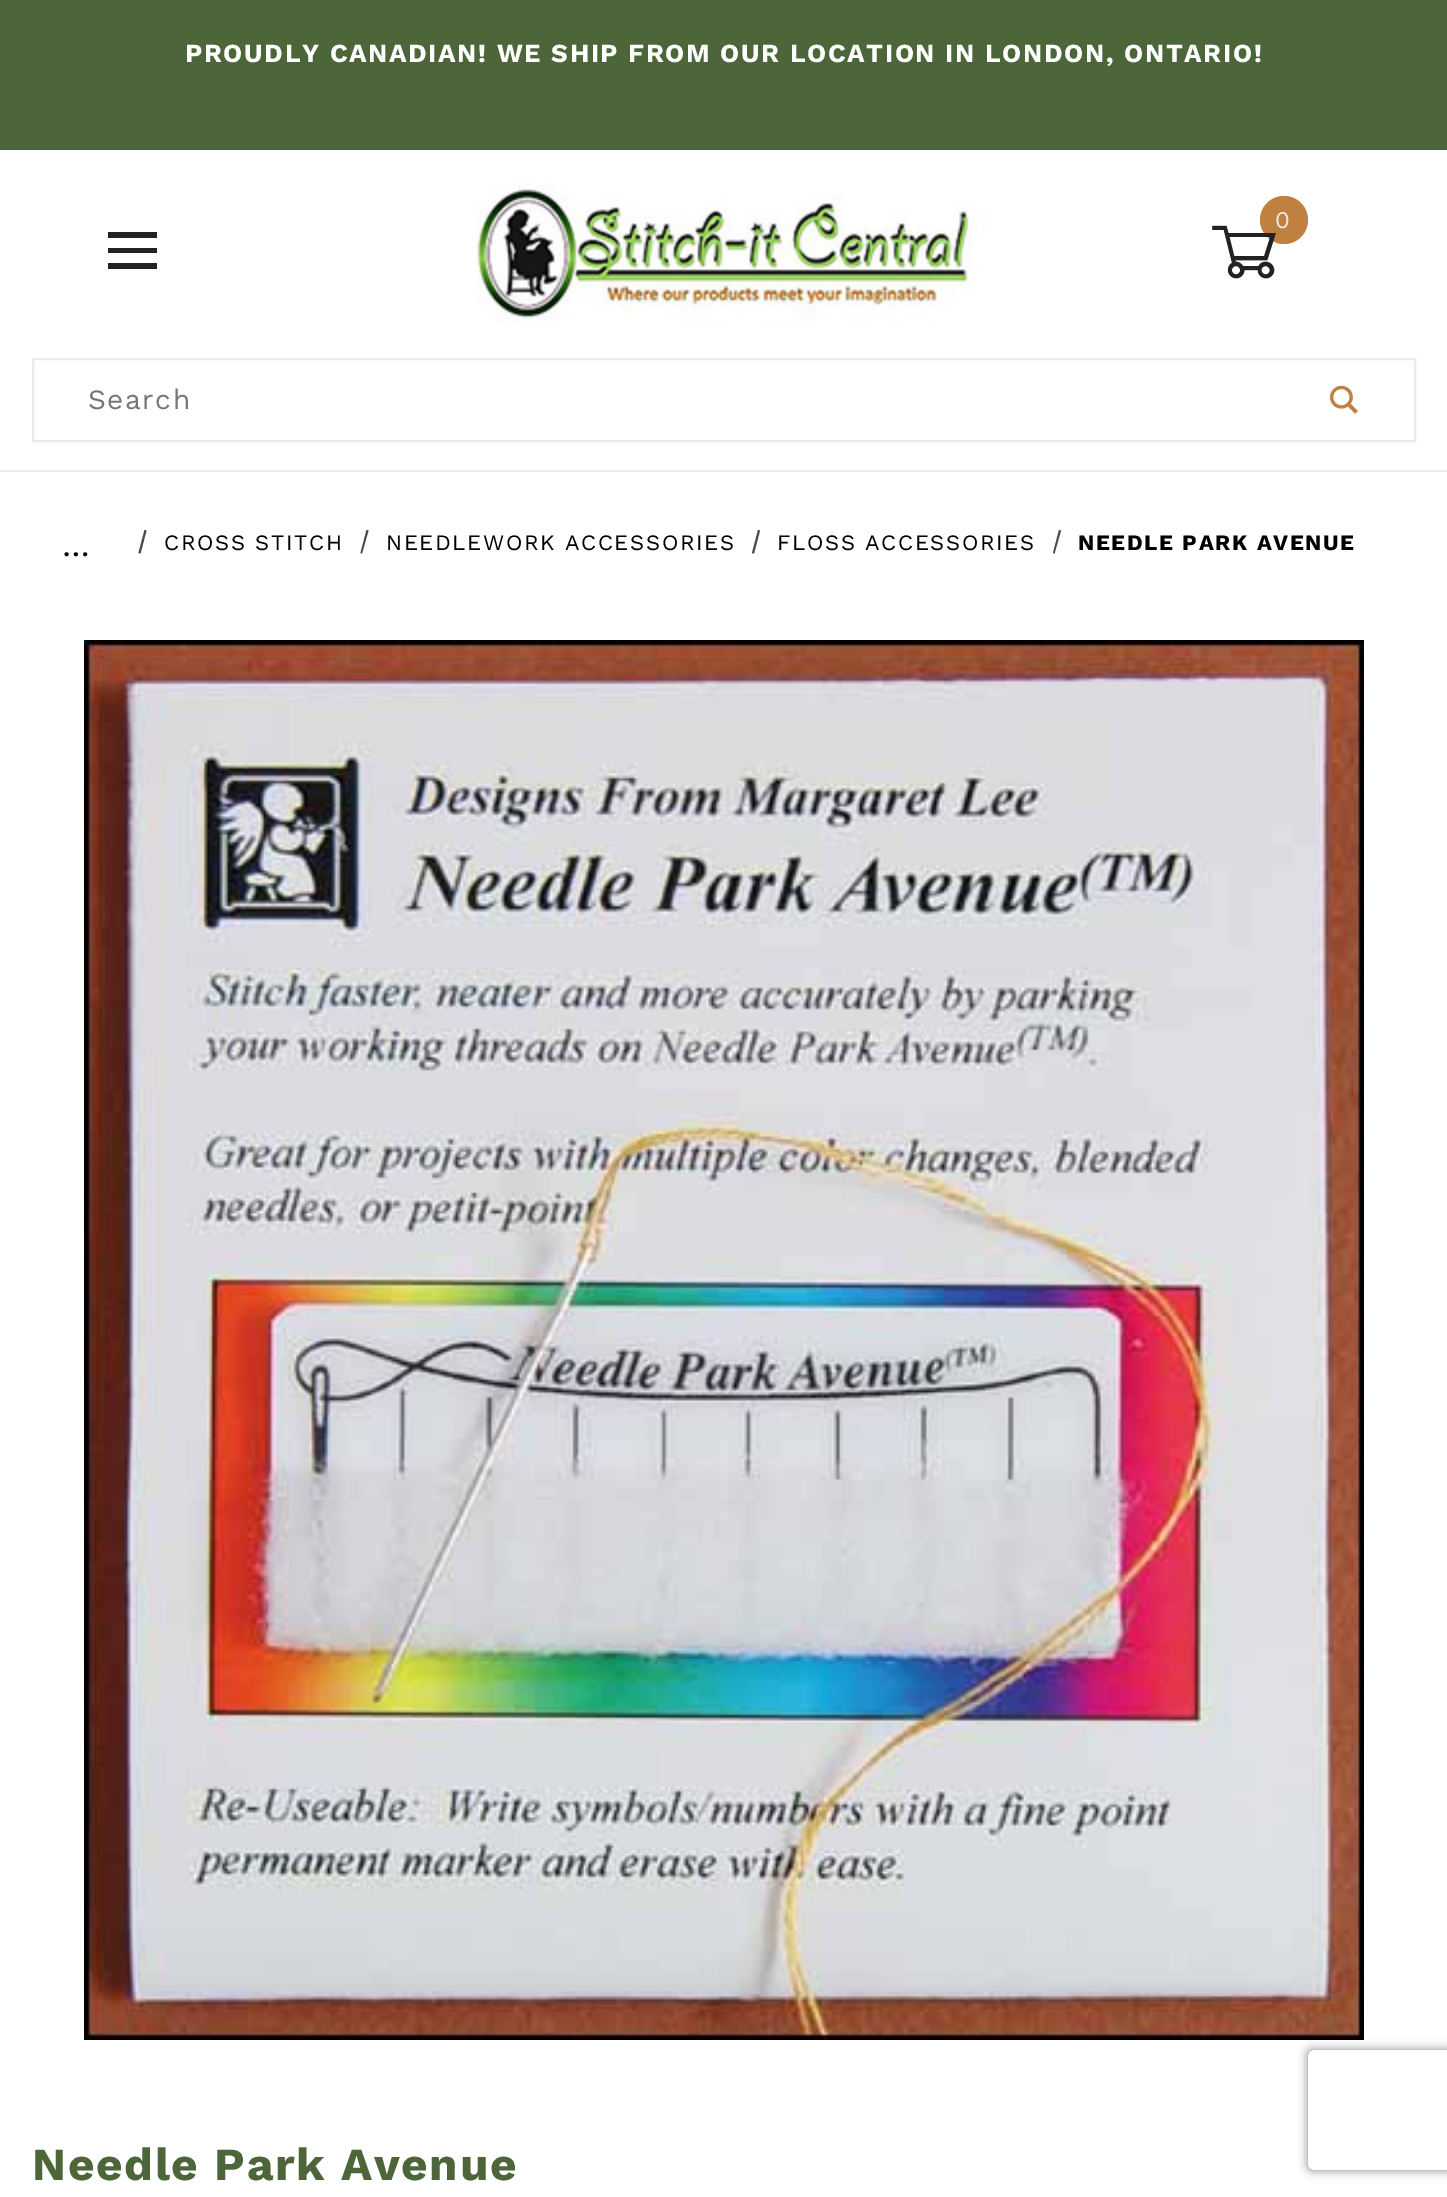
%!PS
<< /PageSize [1447 2197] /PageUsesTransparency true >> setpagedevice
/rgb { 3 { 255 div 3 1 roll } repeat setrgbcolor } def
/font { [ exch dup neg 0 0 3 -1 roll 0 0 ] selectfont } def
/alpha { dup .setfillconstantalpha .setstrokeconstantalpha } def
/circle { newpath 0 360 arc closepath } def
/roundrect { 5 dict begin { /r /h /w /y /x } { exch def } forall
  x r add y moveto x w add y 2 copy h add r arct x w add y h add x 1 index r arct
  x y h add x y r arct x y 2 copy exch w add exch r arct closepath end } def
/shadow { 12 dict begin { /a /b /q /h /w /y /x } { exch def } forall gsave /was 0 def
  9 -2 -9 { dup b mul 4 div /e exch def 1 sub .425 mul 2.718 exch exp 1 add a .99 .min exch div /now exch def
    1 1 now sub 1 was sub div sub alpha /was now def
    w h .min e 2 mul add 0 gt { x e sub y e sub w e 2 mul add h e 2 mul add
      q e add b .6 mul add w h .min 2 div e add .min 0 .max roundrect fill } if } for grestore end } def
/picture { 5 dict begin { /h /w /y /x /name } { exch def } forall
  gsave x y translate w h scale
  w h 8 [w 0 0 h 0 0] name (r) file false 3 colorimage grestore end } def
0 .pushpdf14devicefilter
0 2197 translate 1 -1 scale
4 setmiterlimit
255 255 255 rgb
0 0 1447 2197 rectfill
234 234 234 rgb
0 470 1447 2 rectfill
76 102 58 rgb
0 0 1447 150 rectfill
(img_01.rgb) 476 183 510 139 picture
192 128 63 rgb
1284 220 24 circle fill
(img_02.rgb) 1212 225 64 54 picture
34 34 34 rgb
108 263 moveto 0 6 rlineto 49 0 rlineto 0 -6 rlineto closepath 108 248 moveto 0 5 rlineto 49 0 rlineto 0 -5 rlineto closepath 108 232 moveto 0 6 rlineto 49 0 rlineto 0 -6 rlineto closepath fill
234 234 234 rgb
2 setlinewidth
33 359 1382 82 rectstroke
(img_03.rgb) 1330 385 28 29 picture
74 74 74 rgb
366.5 530 moveto 2 0.5 rlineto -6.5 23 rlineto -1.5 -0.5 rlineto closepath fill
758 530 moveto 2 0.5 rlineto -6 23 rlineto -2 -0.5 rlineto closepath fill
1059 530 moveto 2 0.5 rlineto -6.5 23 rlineto -1.5 -0.5 rlineto closepath fill
144.5 530 moveto 2 0.5 rlineto -6 23 rlineto -2 -0.5 rlineto closepath fill
gsave
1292 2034 moveto 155 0 rlineto 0 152 rlineto -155 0 rlineto closepath 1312 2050 moveto 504 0 rlineto 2 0 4 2 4 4 rcurveto 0 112 rlineto 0 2 -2 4 -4 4 rcurveto -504 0 rlineto -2 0 -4 -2 -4 -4 rcurveto 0 -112 rlineto 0 -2 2 -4 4 -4 rcurveto closepath eoclip newpath
128 128 128 rgb
1308 2050 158 120 4 5 1 shadow
grestore
(img_04.rgb) 84 640 1280 1400 picture
/WorkSans-Bold 26 font
255 255 255 rgb
185 62 moveto 1.6 0 (PROUDLY CANADIAN! WE SHIP FROM OUR LOCATION IN LONDON, ONTARIO!) ashow
/WorkSans-Regular 24 font
234 234 234 rgb
1275 228 moveto 1.6 0 (0) ashow
/WorkSans-Regular 28 font
117 117 117 rgb
88 409 moveto 1.5 0 (Search) ashow
/WorkSans-Regular 22 font
0 0 0 rgb
164 550 moveto 1.6 0 (CROSS STITCH) ashow
386 550 moveto 1.6 0 (NEEDLEWORK ACCESSORIES) ashow
777 550 moveto 1.6 0 (FLOSS ACCESSORIES) ashow
/WorkSans-Bold 22 font
1078 550 moveto 1.6 0 (NEEDLE PARK AVENUE) ashow
/WorkSans-Regular 32 font
62 556 moveto 1.6 0 (…) ashow
/WorkSans-Bold 46 font
76 102 58 rgb
32 2180 moveto 1.6 0 (Needle Park Avenue) ashow
.poppdf14devicefilter showpage
